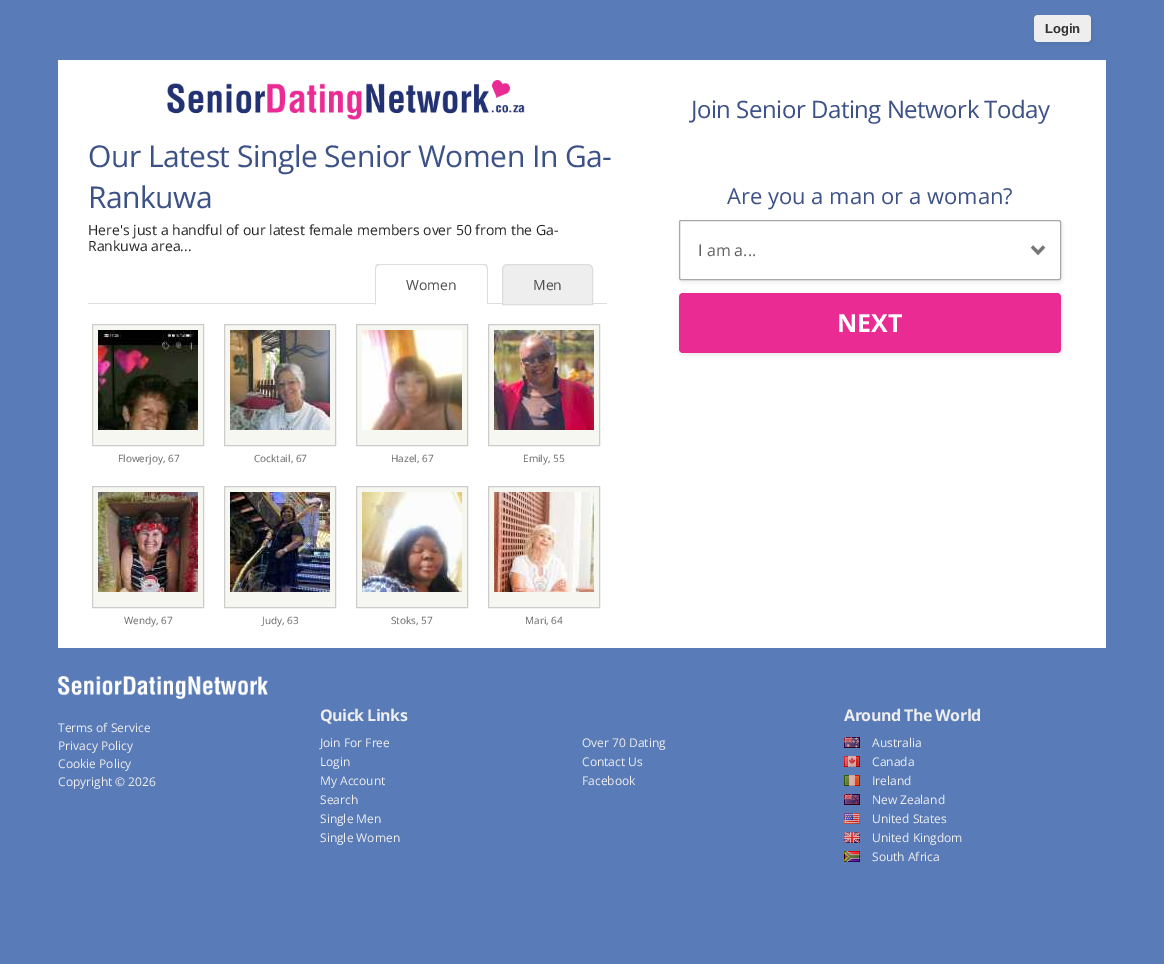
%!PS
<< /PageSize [1164 964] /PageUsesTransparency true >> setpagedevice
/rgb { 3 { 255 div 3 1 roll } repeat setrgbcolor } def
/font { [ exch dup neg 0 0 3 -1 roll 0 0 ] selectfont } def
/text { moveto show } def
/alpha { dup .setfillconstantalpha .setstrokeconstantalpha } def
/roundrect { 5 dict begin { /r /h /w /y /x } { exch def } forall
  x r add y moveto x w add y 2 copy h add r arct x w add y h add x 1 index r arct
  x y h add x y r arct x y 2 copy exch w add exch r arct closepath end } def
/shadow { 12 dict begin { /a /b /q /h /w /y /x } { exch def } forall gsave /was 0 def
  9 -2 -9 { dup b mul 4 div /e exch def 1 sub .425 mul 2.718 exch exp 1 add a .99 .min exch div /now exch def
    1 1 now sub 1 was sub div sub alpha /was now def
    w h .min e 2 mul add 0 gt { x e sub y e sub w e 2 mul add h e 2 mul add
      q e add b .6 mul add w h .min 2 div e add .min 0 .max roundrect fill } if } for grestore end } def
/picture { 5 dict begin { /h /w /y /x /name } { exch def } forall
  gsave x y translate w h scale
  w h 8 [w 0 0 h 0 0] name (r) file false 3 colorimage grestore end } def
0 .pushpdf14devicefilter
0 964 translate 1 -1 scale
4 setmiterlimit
89 123 184 rgb
0 0 1164 964 rectfill
0 0 0 rgb
1035 17 57 27 4 2 0.08 shadow
238 238 238 rgb
1034 15 57 27 4 roundrect fill
255 255 255 rgb
58 60 1048 588 rectfill
(img_01.rgb) 167 80 358 40 picture
221 221 221 rgb
88 303 519 1 rectfill
255 255 255 rgb
380 264 moveto 103 0 rlineto 3 0 5 2 5 5 rcurveto 0 36 rlineto -113 0 rlineto 0 -36 rlineto 0 -3 2 -5 5 -5 rcurveto closepath fill
221 221 221 rgb
380 264 moveto -2 0 -3 0 -4 1 rcurveto 1 1 rlineto 3 -1 rlineto 103 0 rlineto 3 1 rlineto 1 -1 rlineto -1 -1 -3 -1 -4 -1 rcurveto closepath fill
488 305 moveto 0 -36 rlineto 0 -1.5 -0.5 -3 -1.5 -3.5 rcurveto -0.5 0.5 rlineto 0.5 1 1 2 1 3 rcurveto 0 35 rlineto closepath fill
255 255 255 rgb
488 305 moveto -1 -1 rlineto -111 0 rlineto -1 1 rlineto closepath fill
221 221 221 rgb
375 305 moveto 1 -1 rlineto 0 -35 rlineto 0 -1 0.5 -2 1 -3 rcurveto -0.5 -0.5 rlineto -1 0.5 -1.5 2 -1.5 3.5 rcurveto closepath fill
238 238 238 rgb
507 264.5 moveto 81 0 rlineto 2.5 0 4.5 2 4.5 4.5 rcurveto 0 35.5 rlineto -90 0 rlineto 0 -35.5 rlineto 0 -2.5 2 -4.5 4.5 -4.5 rcurveto closepath gsave fill grestore
221 221 221 rgb
stroke
247 247 242 rgb
92.5 324.5 moveto 111 0 rlineto 0 121 rlineto -111 0 rlineto closepath gsave fill grestore
204 204 204 rgb
stroke
(img_02.rgb) 98 330 100 100 picture
247 247 242 rgb
224.5 324.5 moveto 111 0 rlineto 0 121 rlineto -111 0 rlineto closepath gsave fill grestore
204 204 204 rgb
stroke
(img_03.rgb) 230 330 100 100 picture
247 247 242 rgb
356.5 324.5 moveto 111 0 rlineto 0 121 rlineto -111 0 rlineto closepath gsave fill grestore
204 204 204 rgb
stroke
(img_04.rgb) 362 330 100 100 picture
247 247 242 rgb
488.5 324.5 moveto 111 0 rlineto 0 121 rlineto -111 0 rlineto closepath gsave fill grestore
204 204 204 rgb
stroke
(img_05.rgb) 494 330 100 100 picture
247 247 242 rgb
92.5 486.5 moveto 111 0 rlineto 0 121 rlineto -111 0 rlineto closepath gsave fill grestore
204 204 204 rgb
stroke
(img_06.rgb) 98 492 100 100 picture
247 247 242 rgb
224.5 486.5 moveto 111 0 rlineto 0 121 rlineto -111 0 rlineto closepath gsave fill grestore
204 204 204 rgb
stroke
(img_07.rgb) 230 492 100 100 picture
247 247 242 rgb
356.5 486.5 moveto 111 0 rlineto 0 121 rlineto -111 0 rlineto closepath gsave fill grestore
204 204 204 rgb
stroke
(img_08.rgb) 362 492 100 100 picture
247 247 242 rgb
488.5 486.5 moveto 111 0 rlineto 0 121 rlineto -111 0 rlineto closepath gsave fill grestore
204 204 204 rgb
stroke
(img_09.rgb) 494 492 100 100 picture
0 0 0 rgb
680 222 382 60 2 2 0.08 shadow
255 255 255 rgb
679 220 382 60 2 roundrect fill
(img_10.rgb) 1030 245 16 11 picture
168 168 168 rgb
679.5 220.5 381 59 1.5 roundrect stroke
0 0 0 rgb
680 295 382 60 4 2 0.08 shadow
234 43 148 rgb
679 293 382 60 4 roundrect fill
(img_11.rgb) 58 676 210 23 picture
(img_12.rgb) 844 737 16 11 picture
(img_13.rgb) 844 756 16 11 picture
(img_14.rgb) 844 775 16 11 picture
(img_15.rgb) 844 794 16 11 picture
(img_16.rgb) 844 813 16 11 picture
(img_17.rgb) 844 832 16 11 picture
(img_18.rgb) 844 851 16 11 picture
/LiberationSans-Bold 13 font
51 51 51 rgb
(Login) 1045 33 text
/OpenSans-Regular 30 font
60 82 134 rgb
88 167 moveto -0.5 0 (Our Latest Single Senior Women In Ga-) ashow
88 208 moveto -0.5 0 (Rankuwa) ashow
/OpenSans-Regular 14 font
37 37 37 rgb
(Here's just a handful of our latest female members over 50 from the Ga-) 88 235 text
(Rankuwa area...) 88 251 text
76 76 76 rgb
(Women) 406 290 text
(Men) 533 290 text
/OpenSans-Regular 10 font
102 102 102 rgb
(Flowerjoy, 67) 118 462 text
(Cocktail, 67) 254 462 text
(Hazel, 67) 391 462 text
(Emily, 55) 523 462 text
(Wendy, 67) 124 624 text
(Judy, 63) 262 624 text
(Stoks, 57) 391 624 text
(Mari, 64) 525 624 text
/OpenSans-Regular 24 font
60 82 134 rgb
691 118 moveto -0.5 0 (Join Senior Dating Network Today) ashow
/OpenSans-Regular 22 font
(Are you a man or a woman?) 727 204 text
/OpenSans-Regular 16 font
95 95 95 rgb
(I am a...) 698 256 text
/OpenSans-Bold 25 font
255 255 255 rgb
(NEXT) 837 332 text
/OpenSans-Regular 12 font
238 238 238 rgb
(Terms of Service) 58 732 text
(Privacy Policy) 58 750 text
(Cookie Policy) 58 768 text
(Copyright © 2026) 58 786 text
/OpenSans-Bold 16 font
320 721 moveto -0.5 0 (Quick Links) ashow
/OpenSans-Regular 12 font
(Join For Free) 320 747 text
(Login) 320 766 text
(My Account) 320 785 text
(Search) 320 804 text
(Single Men) 320 823 text
(Single Women) 320 842 text
(Over 70 Dating) 582 747 text
(Contact Us) 582 766 text
(Facebook) 582 785 text
/OpenSans-Bold 16 font
844 721 moveto -0.5 0 (Around The World) ashow
/OpenSans-Regular 12 font
(Australia) 872 747 text
(Canada) 872 766 text
(Ireland) 872 785 text
(New Zealand) 872 804 text
(United States) 872 823 text
(United Kingdom) 872 842 text
(South Africa) 872 861 text
.poppdf14devicefilter showpage
